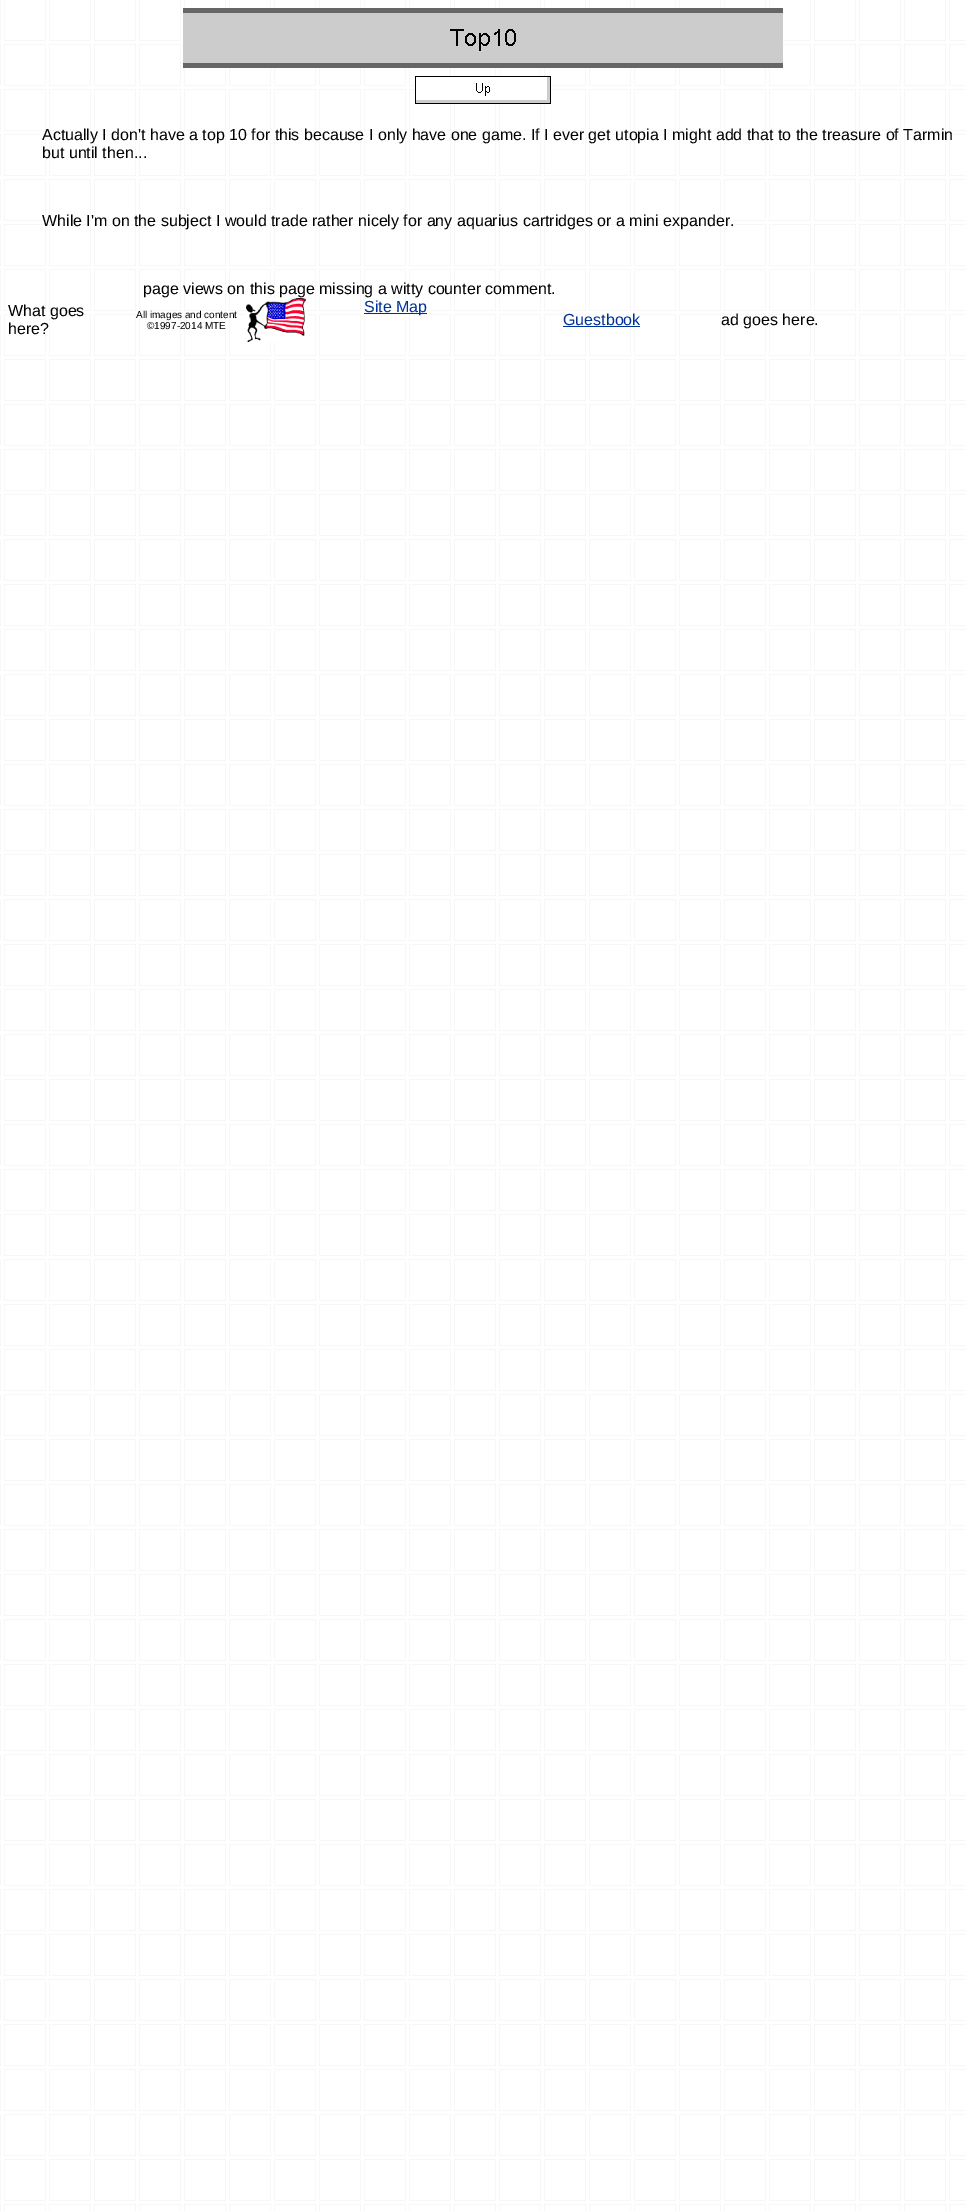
%!PS
<< /PageSize [966 2211] >> setpagedevice
/rgb { 3 { 255 div 3 1 roll } repeat setrgbcolor } def
/font { [ exch dup neg 0 0 3 -1 roll 0 0 ] selectfont } def
/text { moveto show } def
/picture { 5 dict begin { /h /w /y /x /name } { exch def } forall
  gsave x y translate w h scale
  w h 8 [w 0 0 h 0 0] name (r) file false 3 colorimage grestore end } def
0 2211 translate 1 -1 scale
4 setmiterlimit
255 255 255 rgb
0 0 966 2211 rectfill
(img_01.rgb) 0 0 966 2211 picture
(img_02.rgb) 183 8 600 60 picture
(img_03.rgb) 415 76 136 28 picture
(img_04.rgb) 246 298 60 44 picture
0 51 153 rgb
364 313 63 1 rectfill
563 326 77 1 rectfill
/LiberationSans-Regular 16 font
0 0 0 rgb
(Actually I don't have a top 10 for this because I only have one game. If I ever get utopia I might add that to the treasure of Tarmin) 42 140 text
(but until then...) 42 158 text
(While I'm on the subject I would trade rather nicely for any aquarius cartridges or a mini expander.) 42 226 text
(page views on this page missing a witty counter comment.) 143 294 text
(What goes) 8 316 text
(here?) 8 334 text
/LiberationSans-Regular 10 font
(All images and content) 136 318 text
(©1997-2014 MTE) 147 329 text
/LiberationSans-Regular 16 font
0 51 153 rgb
(Site Map) 364 312 text
(Guestbook) 563 325 text
0 0 0 rgb
(ad goes here.) 721 325 text
showpage
